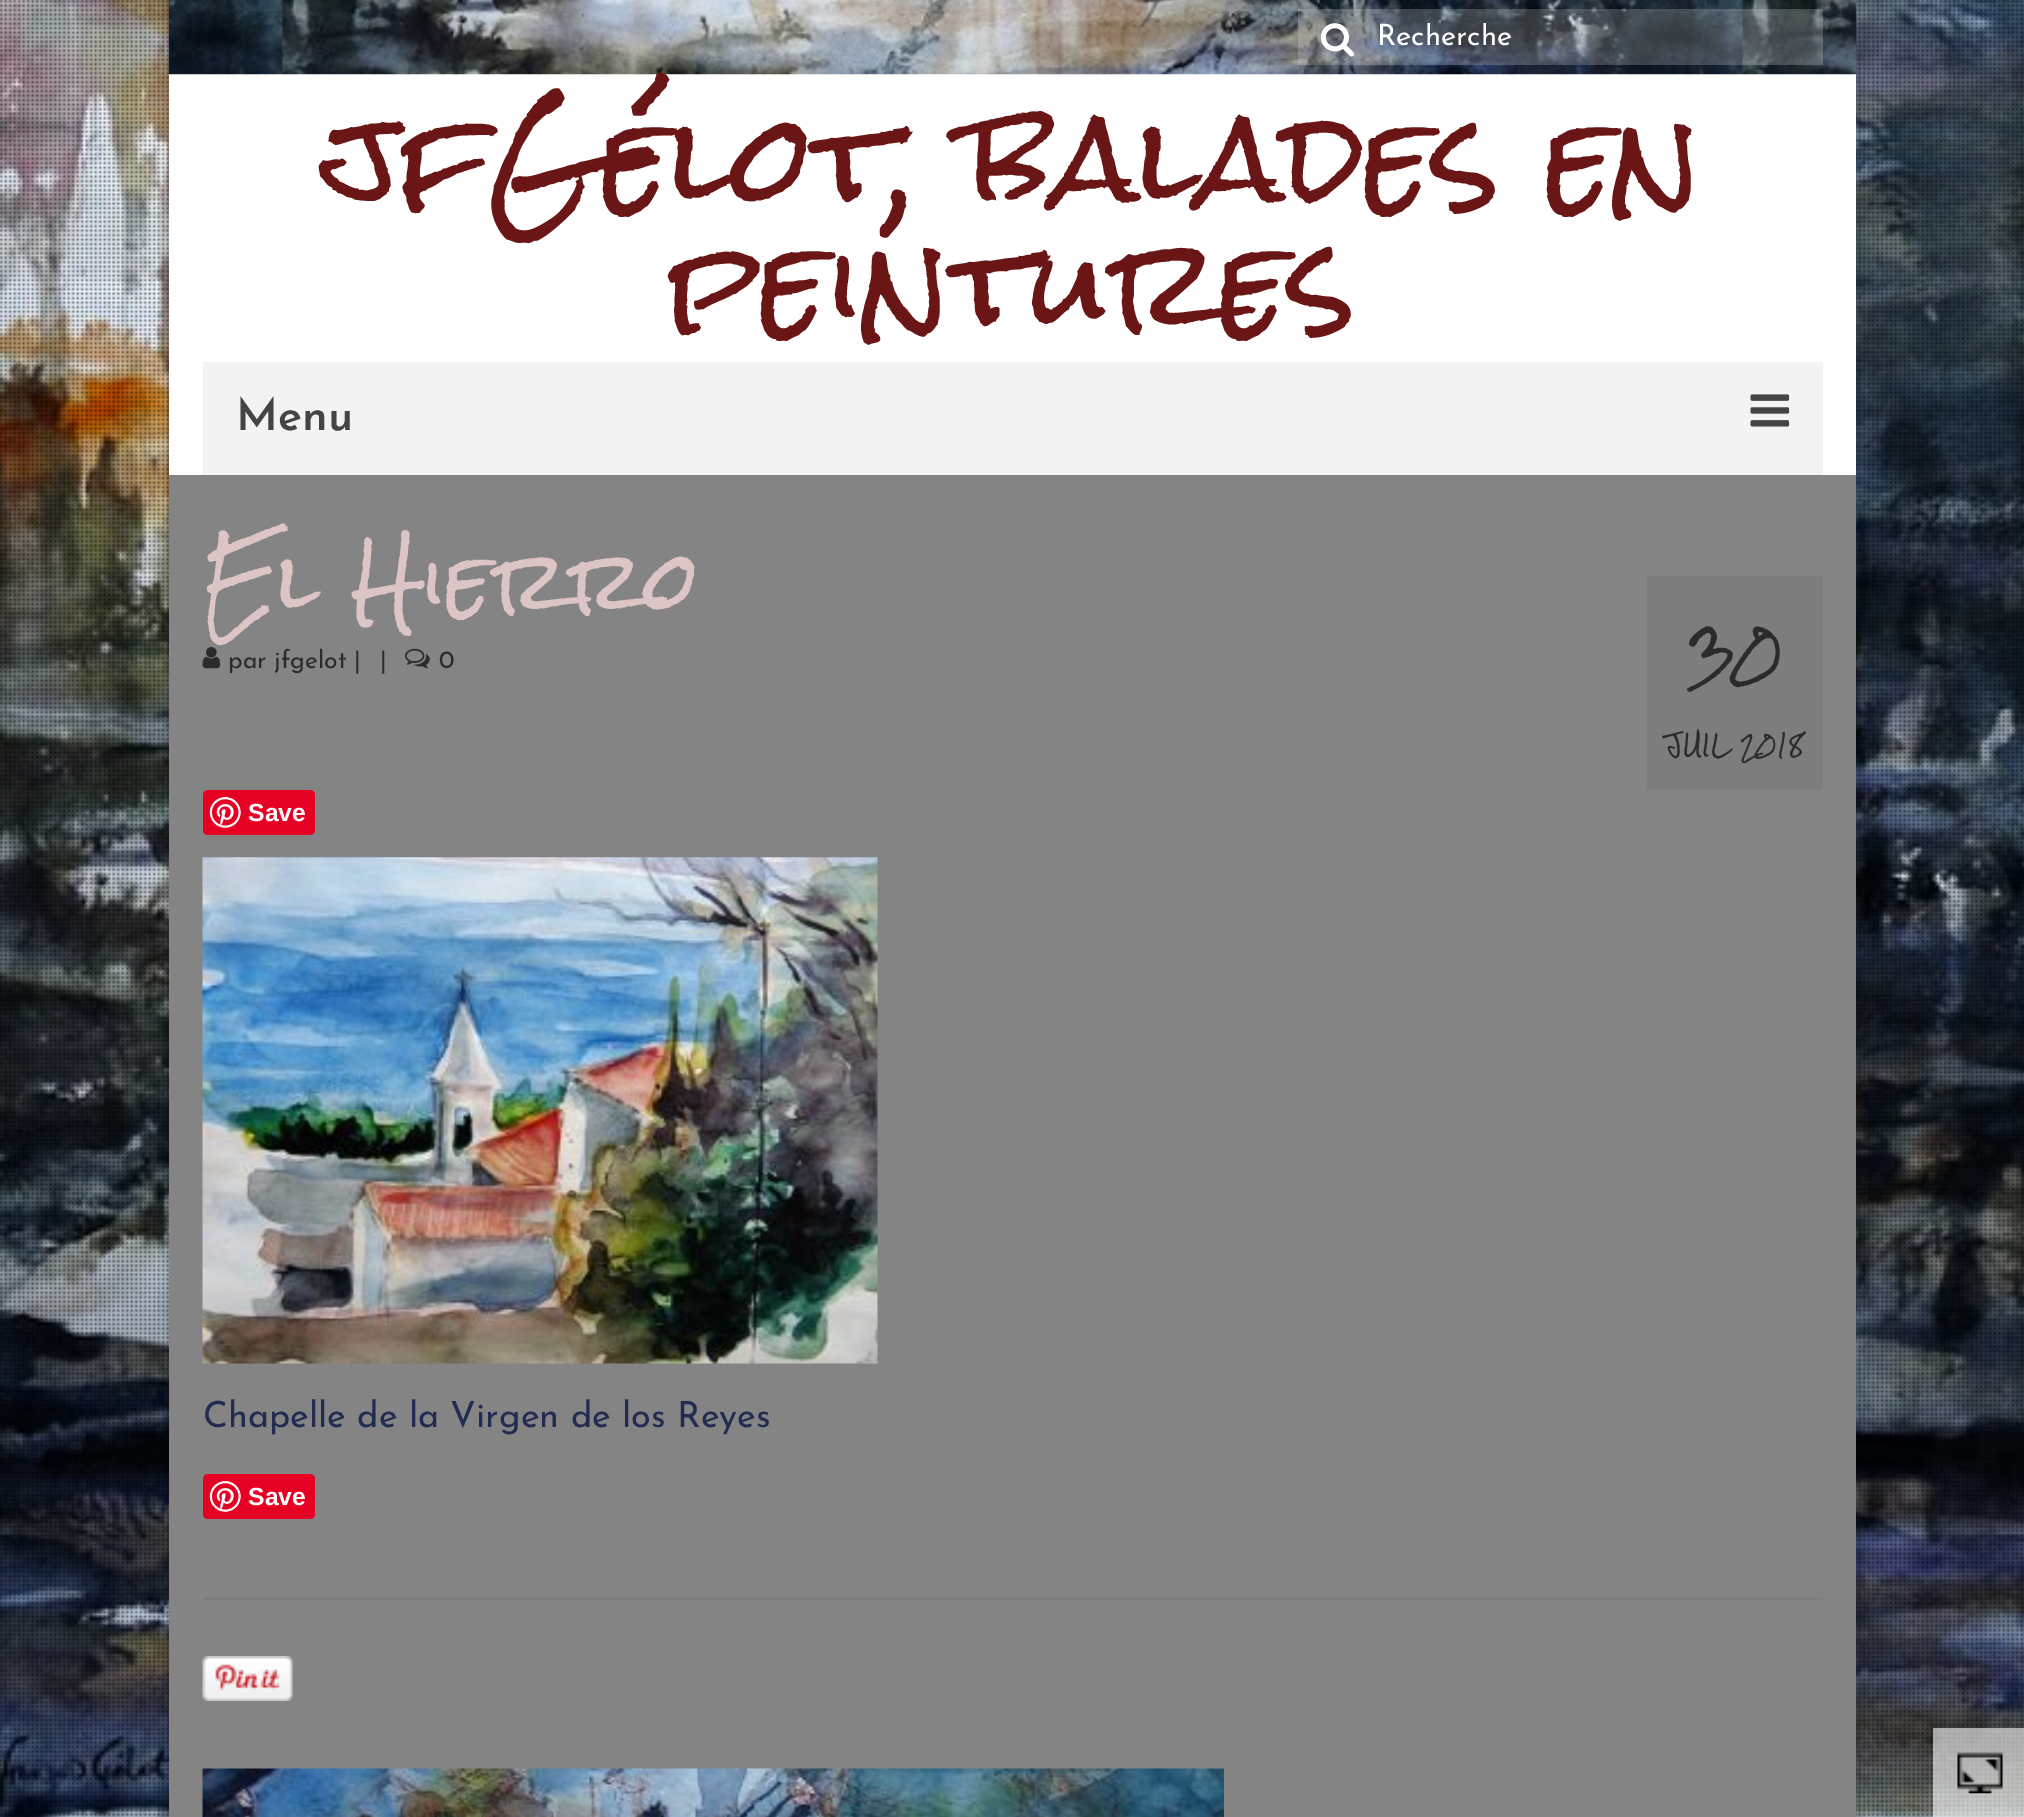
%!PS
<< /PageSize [2024 1817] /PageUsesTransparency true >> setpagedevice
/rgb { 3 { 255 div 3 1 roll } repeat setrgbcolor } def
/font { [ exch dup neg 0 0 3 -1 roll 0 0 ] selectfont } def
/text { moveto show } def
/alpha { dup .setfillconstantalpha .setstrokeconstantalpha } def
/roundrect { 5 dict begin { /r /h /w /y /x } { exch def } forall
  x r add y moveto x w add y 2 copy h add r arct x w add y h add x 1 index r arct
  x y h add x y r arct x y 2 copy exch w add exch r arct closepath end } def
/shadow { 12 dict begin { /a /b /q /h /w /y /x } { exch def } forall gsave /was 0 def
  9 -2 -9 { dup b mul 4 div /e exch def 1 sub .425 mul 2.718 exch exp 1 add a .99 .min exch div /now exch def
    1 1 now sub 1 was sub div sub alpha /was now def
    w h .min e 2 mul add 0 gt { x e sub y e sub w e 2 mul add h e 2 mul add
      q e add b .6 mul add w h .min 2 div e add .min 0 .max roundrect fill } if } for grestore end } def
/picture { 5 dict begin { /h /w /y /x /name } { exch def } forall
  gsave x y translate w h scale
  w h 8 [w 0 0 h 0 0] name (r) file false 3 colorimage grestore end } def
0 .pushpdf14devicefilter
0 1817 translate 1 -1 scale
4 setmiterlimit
255 255 255 rgb
0 0 2024 1817 rectfill
(img_01.rgb) 0 0 2024 1817 picture
(img_02.rgb) 0 0 2024 1817 picture
0 0 0 rgb
167 -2 1692 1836 0 5.5 0.16 shadow
255 255 255 rgb
169 74 1687 401 rectfill
(img_03.rgb) 168 0 1689 75 picture
0.2 alpha
1298 9 525 56 rectfill
1 alpha
(img_04.rgb) 1320 23 35 34 picture
243 243 243 rgb
203 362 1620 113 rectfill
(img_05.rgb) 1750 394 40 33 picture
132 132 132 rgb
169 475 1687 1342 rectfill
(img_06.rgb) 202 647 19 22 picture
(img_07.rgb) 405 648 25 21 picture
125 125 125 rgb
1647 576 176 214 rectfill
230 0 35 rgb
203 790 112 45 5 roundrect fill
(img_08.rgb) 209 797 32 31 picture
(img_09.rgb) 202 857 676 507 picture
203 1474 112 45 5 roundrect fill
(img_08.rgb) 209 1481 32 31 picture
125 125 125 rgb
203 1598 1620 2 rectfill
(img_10.rgb) 202 1656 91 45 picture
(img_11.rgb) 202 1768 1022 49 picture
0.6 alpha
255 255 255 rgb
1933 1728 91 89 rectfill
1 alpha
(img_12.rgb) 1957 1752 46 42 picture
gsave
1377 23 434 29 rectclip
/JosefinSans-Regular 29.25 font
(Recherche) 1377 45 text
grestore
/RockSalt-Regular 117 font
107 22 22 rgb
(jfGélot, balades en) 324 205 text
(peintures) 669 329 text
/JosefinSans-SemiBold 45 font
68 68 68 rgb
(Menu) 236 430 text
/RockSalt-Regular 78.75 font
221 197 197 rgb
(El Hierro) 203 612 text
/JosefinSans-Regular 24.75 font
43 43 43 rgb
(par jfgelot |) 228 668 text
(|) 380 668 text
(0) 439 668 text
/RockSalt-Regular 54 font
(30) 1687 675 text
/RockSalt-Regular 22.5 font
(JUIL 2018) 1665 754 text
/LiberationSans-Bold 24.75 font
255 255 255 rgb
(Save) 248 821 text
/JosefinSans-Regular 36 font
34 43 81 rgb
(Chapelle de la Virgen de los Reyes) 203 1427 text
/LiberationSans-Bold 24.75 font
255 255 255 rgb
(Save) 248 1505 text
.poppdf14devicefilter showpage
